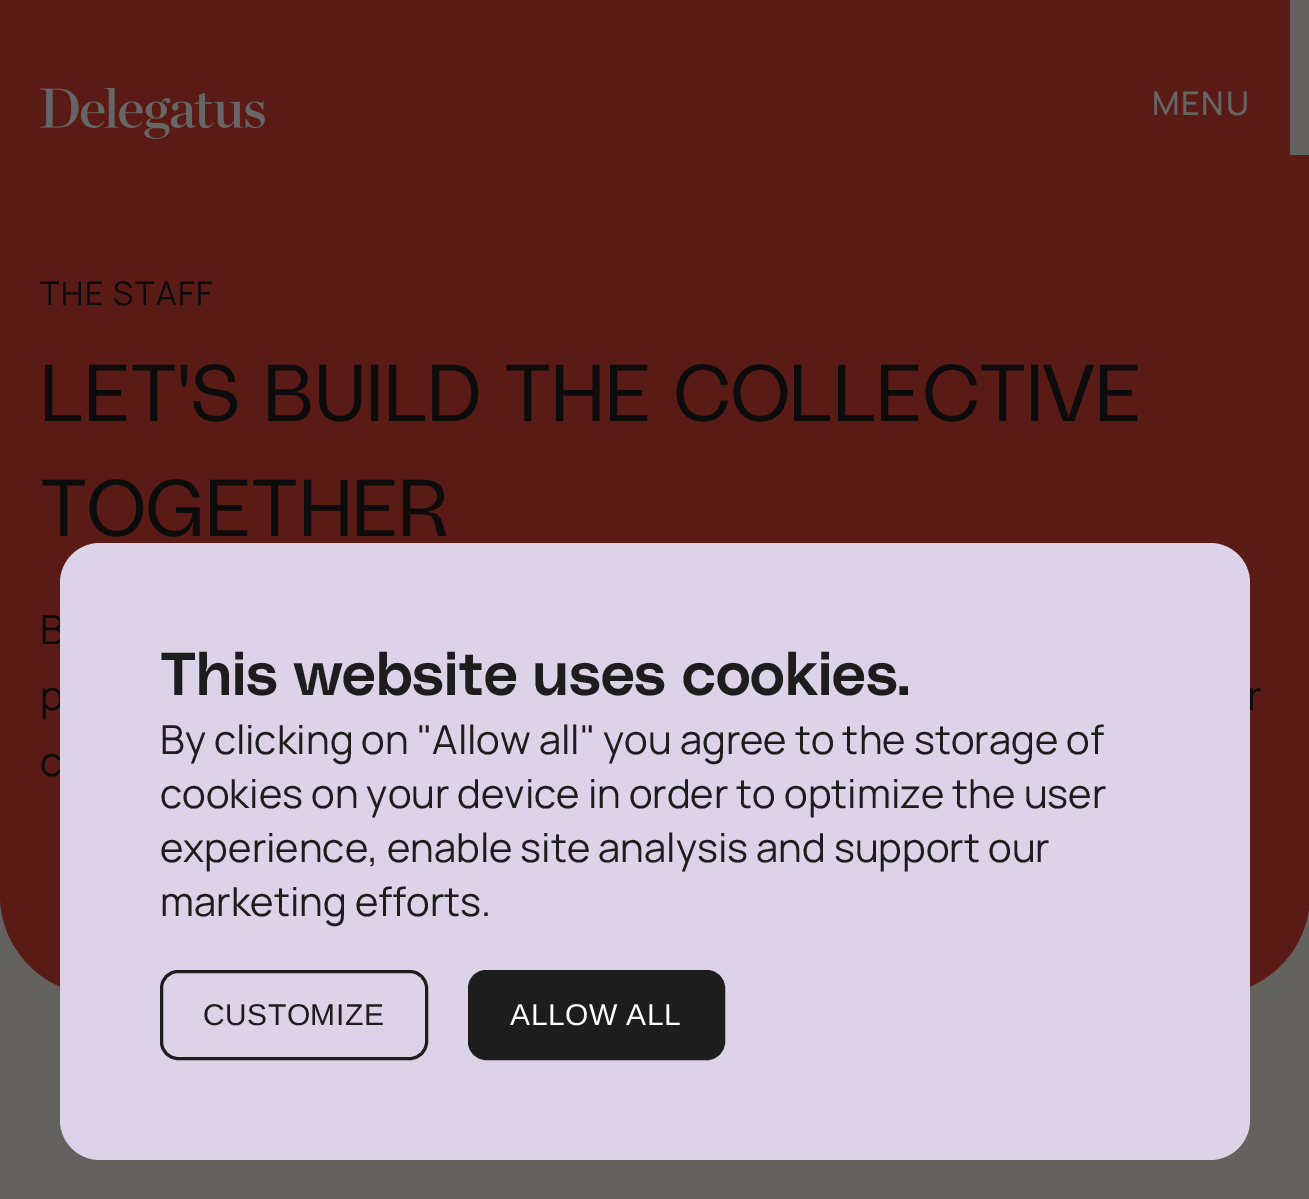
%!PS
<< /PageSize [1309 1199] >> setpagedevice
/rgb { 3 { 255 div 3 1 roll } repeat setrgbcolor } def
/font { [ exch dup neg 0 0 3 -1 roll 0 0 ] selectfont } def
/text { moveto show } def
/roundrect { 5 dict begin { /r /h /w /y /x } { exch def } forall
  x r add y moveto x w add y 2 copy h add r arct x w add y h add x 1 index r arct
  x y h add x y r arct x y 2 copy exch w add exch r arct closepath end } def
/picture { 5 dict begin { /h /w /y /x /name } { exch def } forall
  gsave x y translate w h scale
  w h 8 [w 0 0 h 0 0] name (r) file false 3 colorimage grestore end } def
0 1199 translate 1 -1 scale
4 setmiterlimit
99 98 95 rgb
0 0 1309 1199 rectfill
90 26 21 rgb
0 0 1290 155 rectfill
(img_01.rgb) 40 88 225 51 picture
0 155 moveto 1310 0 rlineto 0 740 rlineto 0 55 -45 100 -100 100 rcurveto -1110 0 rlineto -55 0 -100 -45 -100 -100 rcurveto closepath fill
/Manrope-Medium 32.5 font
102 102 102 rgb
1152 115 moveto 1.6 0 (MENU) ashow
/Manrope-Regular 32.5 font
12 12 12 rgb
40 305 moveto 1.6 0 (THE STAFF) ashow
/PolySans-Light 80 font
(LET'S BUILD THE COLLECTIVE) 40 421 text
(TOGETHER) 40 536 text
/Manrope-Regular 40 font
(B) 40 644 text
(p) 40 710 text
(r) 1247 710 text
(c) 40 776 text
220 211 233 rgb
60 543 1190 617 40 roundrect fill
/PolySans-SemiBold 60 font
29 29 29 rgb
(This website uses cookies.) 160 695 text
/Manrope-Regular 40 font
(By clicking on "Allow all" you agree to the storage of) 160 754 text
(cookies on your device in order to optimize the user) 160 808 text
(experience, enable site analysis and support our) 160 862 text
(marketing efforts.) 160 916 text
3 setlinewidth
161.5 971.5 265 87 16.5 roundrect stroke
/LiberationSans-Regular 30 font
203 1025 moveto 0.5 0 (CUSTOMIZE) ashow
469.5 971.5 254 87 16.5 roundrect gsave fill grestore
stroke
255 255 255 rgb
510 1025 moveto 0.5 0 (ALLOW ALL) ashow
showpage
